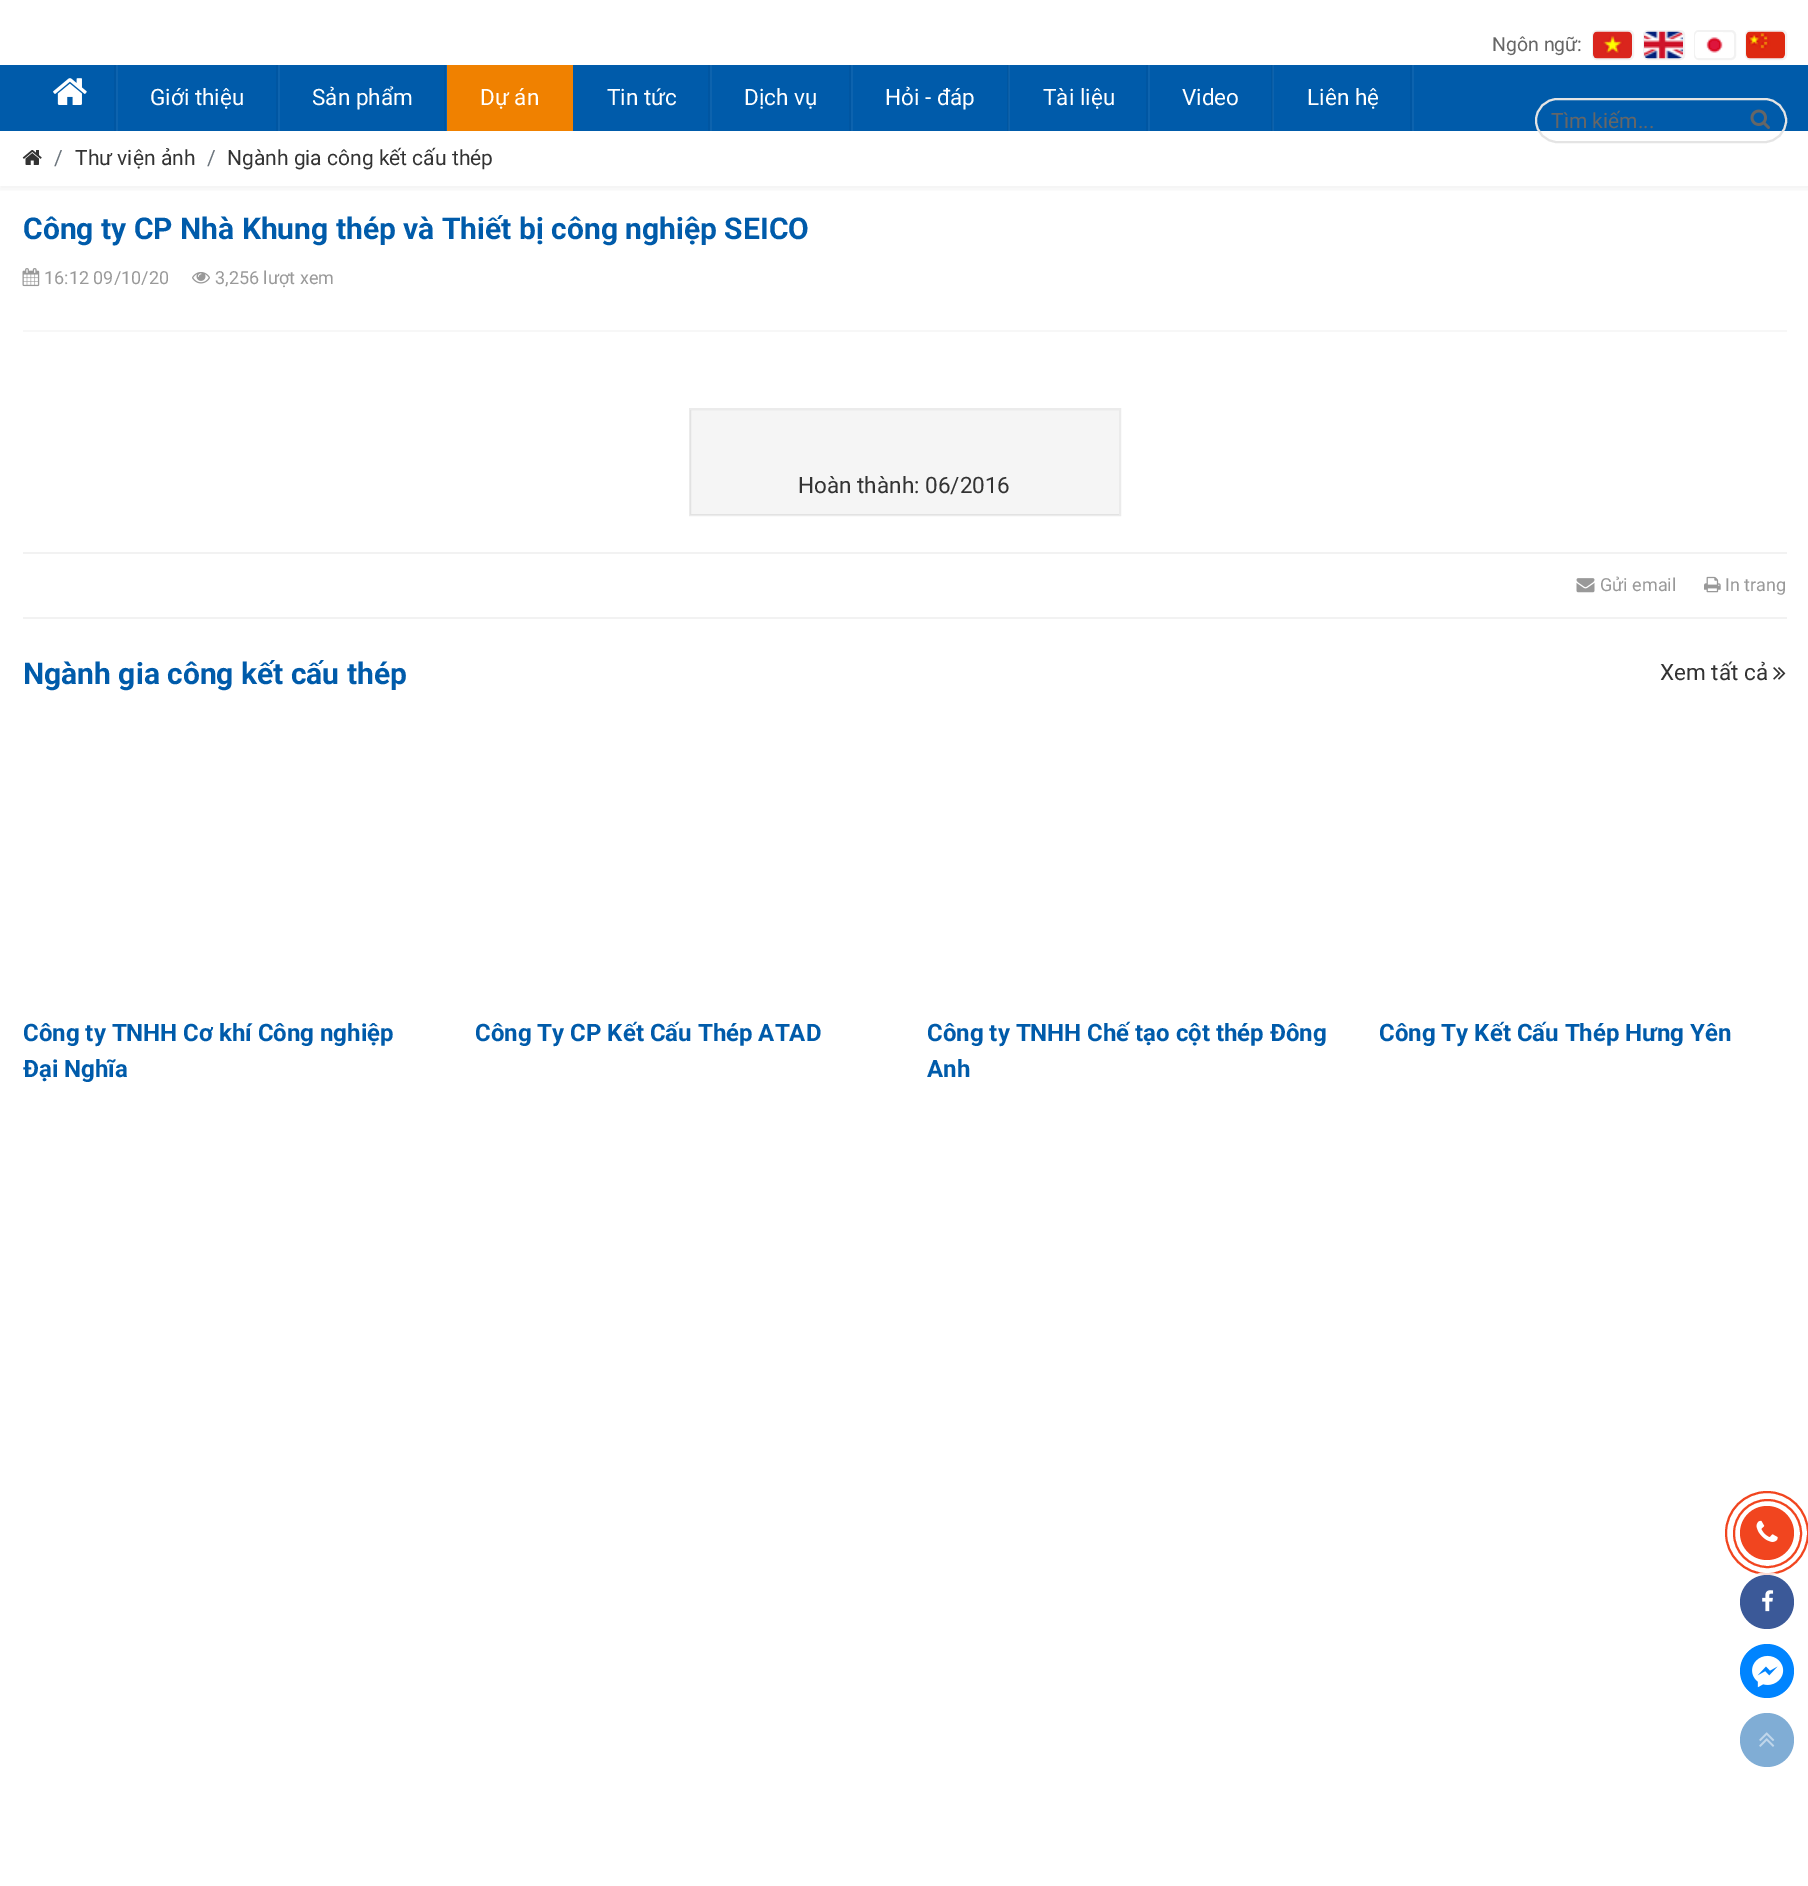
%!PS
<< /PageSize [1808 1886] /PageUsesTransparency true >> setpagedevice
/rgb { 3 { 255 div 3 1 roll } repeat setrgbcolor } def
/font { [ exch dup neg 0 0 3 -1 roll 0 0 ] selectfont } def
/text { moveto show } def
/alpha { dup .setfillconstantalpha .setstrokeconstantalpha } def
/circle { newpath 0 360 arc closepath } def
/roundrect { 5 dict begin { /r /h /w /y /x } { exch def } forall
  x r add y moveto x w add y 2 copy h add r arct x w add y h add x 1 index r arct
  x y h add x y r arct x y 2 copy exch w add exch r arct closepath end } def
/shadow { 12 dict begin { /a /b /q /h /w /y /x } { exch def } forall gsave /was 0 def
  9 -2 -9 { dup b mul 4 div /e exch def 1 sub .425 mul 2.718 exch exp 1 add a .99 .min exch div /now exch def
    1 1 now sub 1 was sub div sub alpha /was now def
    w h .min e 2 mul add 0 gt { x e sub y e sub w e 2 mul add h e 2 mul add
      q e add b .6 mul add w h .min 2 div e add .min 0 .max roundrect fill } if } for grestore end } def
/picture { 5 dict begin { /h /w /y /x /name } { exch def } forall
  gsave x y translate w h scale
  w h 8 [w 0 0 h 0 0] name (r) file false 3 colorimage grestore end } def
0 .pushpdf14devicefilter
0 1886 translate 1 -1 scale
4 setmiterlimit
255 255 255 rgb
0 0 1808 1886 rectfill
gsave
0 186 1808 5 rectclip
0 0 0 rgb
0 134 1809 55 0 4 0.06 shadow
grestore
0 91 170 rgb
0 65 1808 66 rectfill
(img_01.rgb) 53 78 34 27 picture
13 99 174 rgb
116 65 2 66 rectfill
0 86 162 rgb
114 65 2 66 rectfill
13 99 174 rgb
278 65 2 66 rectfill
0 86 162 rgb
276 65 2 66 rectfill
13 99 174 rgb
446 65 1 66 rectfill
0 86 162 rgb
444 65 2 66 rectfill
240 129 0 rgb
447 65 126 66 rectfill
13 99 174 rgb
710 65 2 66 rectfill
0 86 162 rgb
708 65 2 66 rectfill
13 99 174 rgb
851 65 2 66 rectfill
0 86 162 rgb
849 65 2 66 rectfill
13 99 174 rgb
1008 65 2 66 rectfill
0.05 alpha
0 0 0 rgb
1007 65 2 66 rectfill
1 alpha
13 99 174 rgb
1148 65 2 66 rectfill
0 86 162 rgb
1146 65 2 66 rectfill
13 99 174 rgb
1272 65 2 66 rectfill
0.05 alpha
0 0 0 rgb
1271 65 2 66 rectfill
1 alpha
13 99 174 rgb
1412 65 2 66 rectfill
0 86 162 rgb
1410 65 2 66 rectfill
242 242 242 rgb
2 setlinewidth
1593 31 40 28 4 roundrect stroke
(img_02.rgb) 1593 31 39 28 picture
1644 31 40 28 4 roundrect stroke
(img_03.rgb) 1644 31 39 28 picture
1695 31 40 28 4 roundrect stroke
(img_04.rgb) 1695 32 28 26 picture
1746 31 40 28 4 roundrect stroke
(img_05.rgb) 1746 31 39 28 picture
228 228 228 rgb
1536 99 250 43 21.5 roundrect stroke
(img_06.rgb) 1750 109 20 20 picture
(img_07.rgb) 22 150 20 15 picture
(img_08.rgb) 22 268 18 19 picture
(img_09.rgb) 192 272 18 12 picture
247 247 247 rgb
23 330 1764 2 rectfill
245 245 245 rgb
690 410 429 105 rectfill
0.08 alpha
0 0 0 rgb
690 409 430 106 rectstroke
1 alpha
242 242 242 rgb
23 552 1764 2 rectfill
23 617 1764 2 rectfill
(img_10.rgb) 1576 578 19 15 picture
(img_11.rgb) 1704 576 17 17 picture
(img_12.rgb) 1773 667 13 13 picture
241 69 31 rgb
1767 1533 41 circle stroke
1767.5 1533.5 33.5 circle stroke
1767 1533 27 circle fill
(img_13.rgb) 1756 1520 22 22 picture
0.8 alpha
255 255 255 rgb
3 setlinewidth
1767 1602 28.5 circle stroke
1 alpha
59 89 152 rgb
1767 1602 27 circle fill
(img_14.rgb) 1762 1590 12 22 picture
0 132 255 rgb
1767 1671 27 circle fill
(img_15.rgb) 1746 1650 42 42 picture
128 173 213 rgb
1767 1740 27 circle fill
(img_16.rgb) 1759 1732 16 15 picture
/Roboto-Regular 22.5 font
255 255 255 rgb
(Giới thiệu) 150 105 text
(Sản phẩm) 312 105 text
(Dự án) 480 105 text
(Tin tức) 607 105 text
(Dịch vụ) 744 105 text
(Hỏi - đáp) 885 105 text
(Tài liệu) 1043 105 text
(Video) 1182 105 text
(Liên hệ) 1307 105 text
/Roboto-Regular 19.5 font
102 102 102 rgb
(Ngôn ngữ:) 1492 51 text
/Roboto-Regular 21 font
(Tìm kiếm...) 1551 128 text
108 117 125 rgb
(/) 54 165 text
51 51 51 rgb
(Thư viện ảnh) 75 165 text
108 117 125 rgb
(/) 207 165 text
51 51 51 rgb
(Ngành gia công kết cấu thép) 227 165 text
/Roboto-Bold 30 font
0 91 170 rgb
(Công ty CP Nhà Khung thép và Thiết bị công nghiệp SEICO) 23 239 text
/Roboto-Regular 18 font
153 153 153 rgb
(16:12 09/10/20) 44 284 text
(3,256 lượt xem) 215 284 text
/Roboto-Regular 22.5 font
51 51 51 rgb
(Hoàn thành: 06/2016) 798 493 text
/Roboto-Regular 18 font
153 153 153 rgb
(Gửi email) 1600 591 text
(In trang) 1725 591 text
/Roboto-Bold 30 font
0 91 170 rgb
(Ngành gia công kết cấu thép) 23 684 text
/Roboto-Regular 22.5 font
51 51 51 rgb
(Xem tất cả) 1660 680 text
/Roboto-Bold 24 font
0 91 170 rgb
(Công ty TNHH Cơ khí Công nghiệp) 23 1041 text
gsave
23 1016 408 69 rectclip
(Đại Nghĩa) 23 1077 text
grestore
gsave
476 1016 406 69 rectclip
(Công Ty CP Kết Cấu Thép ATAD) 475 1041 text
grestore
(Công ty TNHH Chế tạo cột thép Đông) 927 1041 text
(Anh) 927 1077 text
(Công Ty Kết Cấu Thép Hưng Yên) 1379 1041 text
.poppdf14devicefilter showpage
